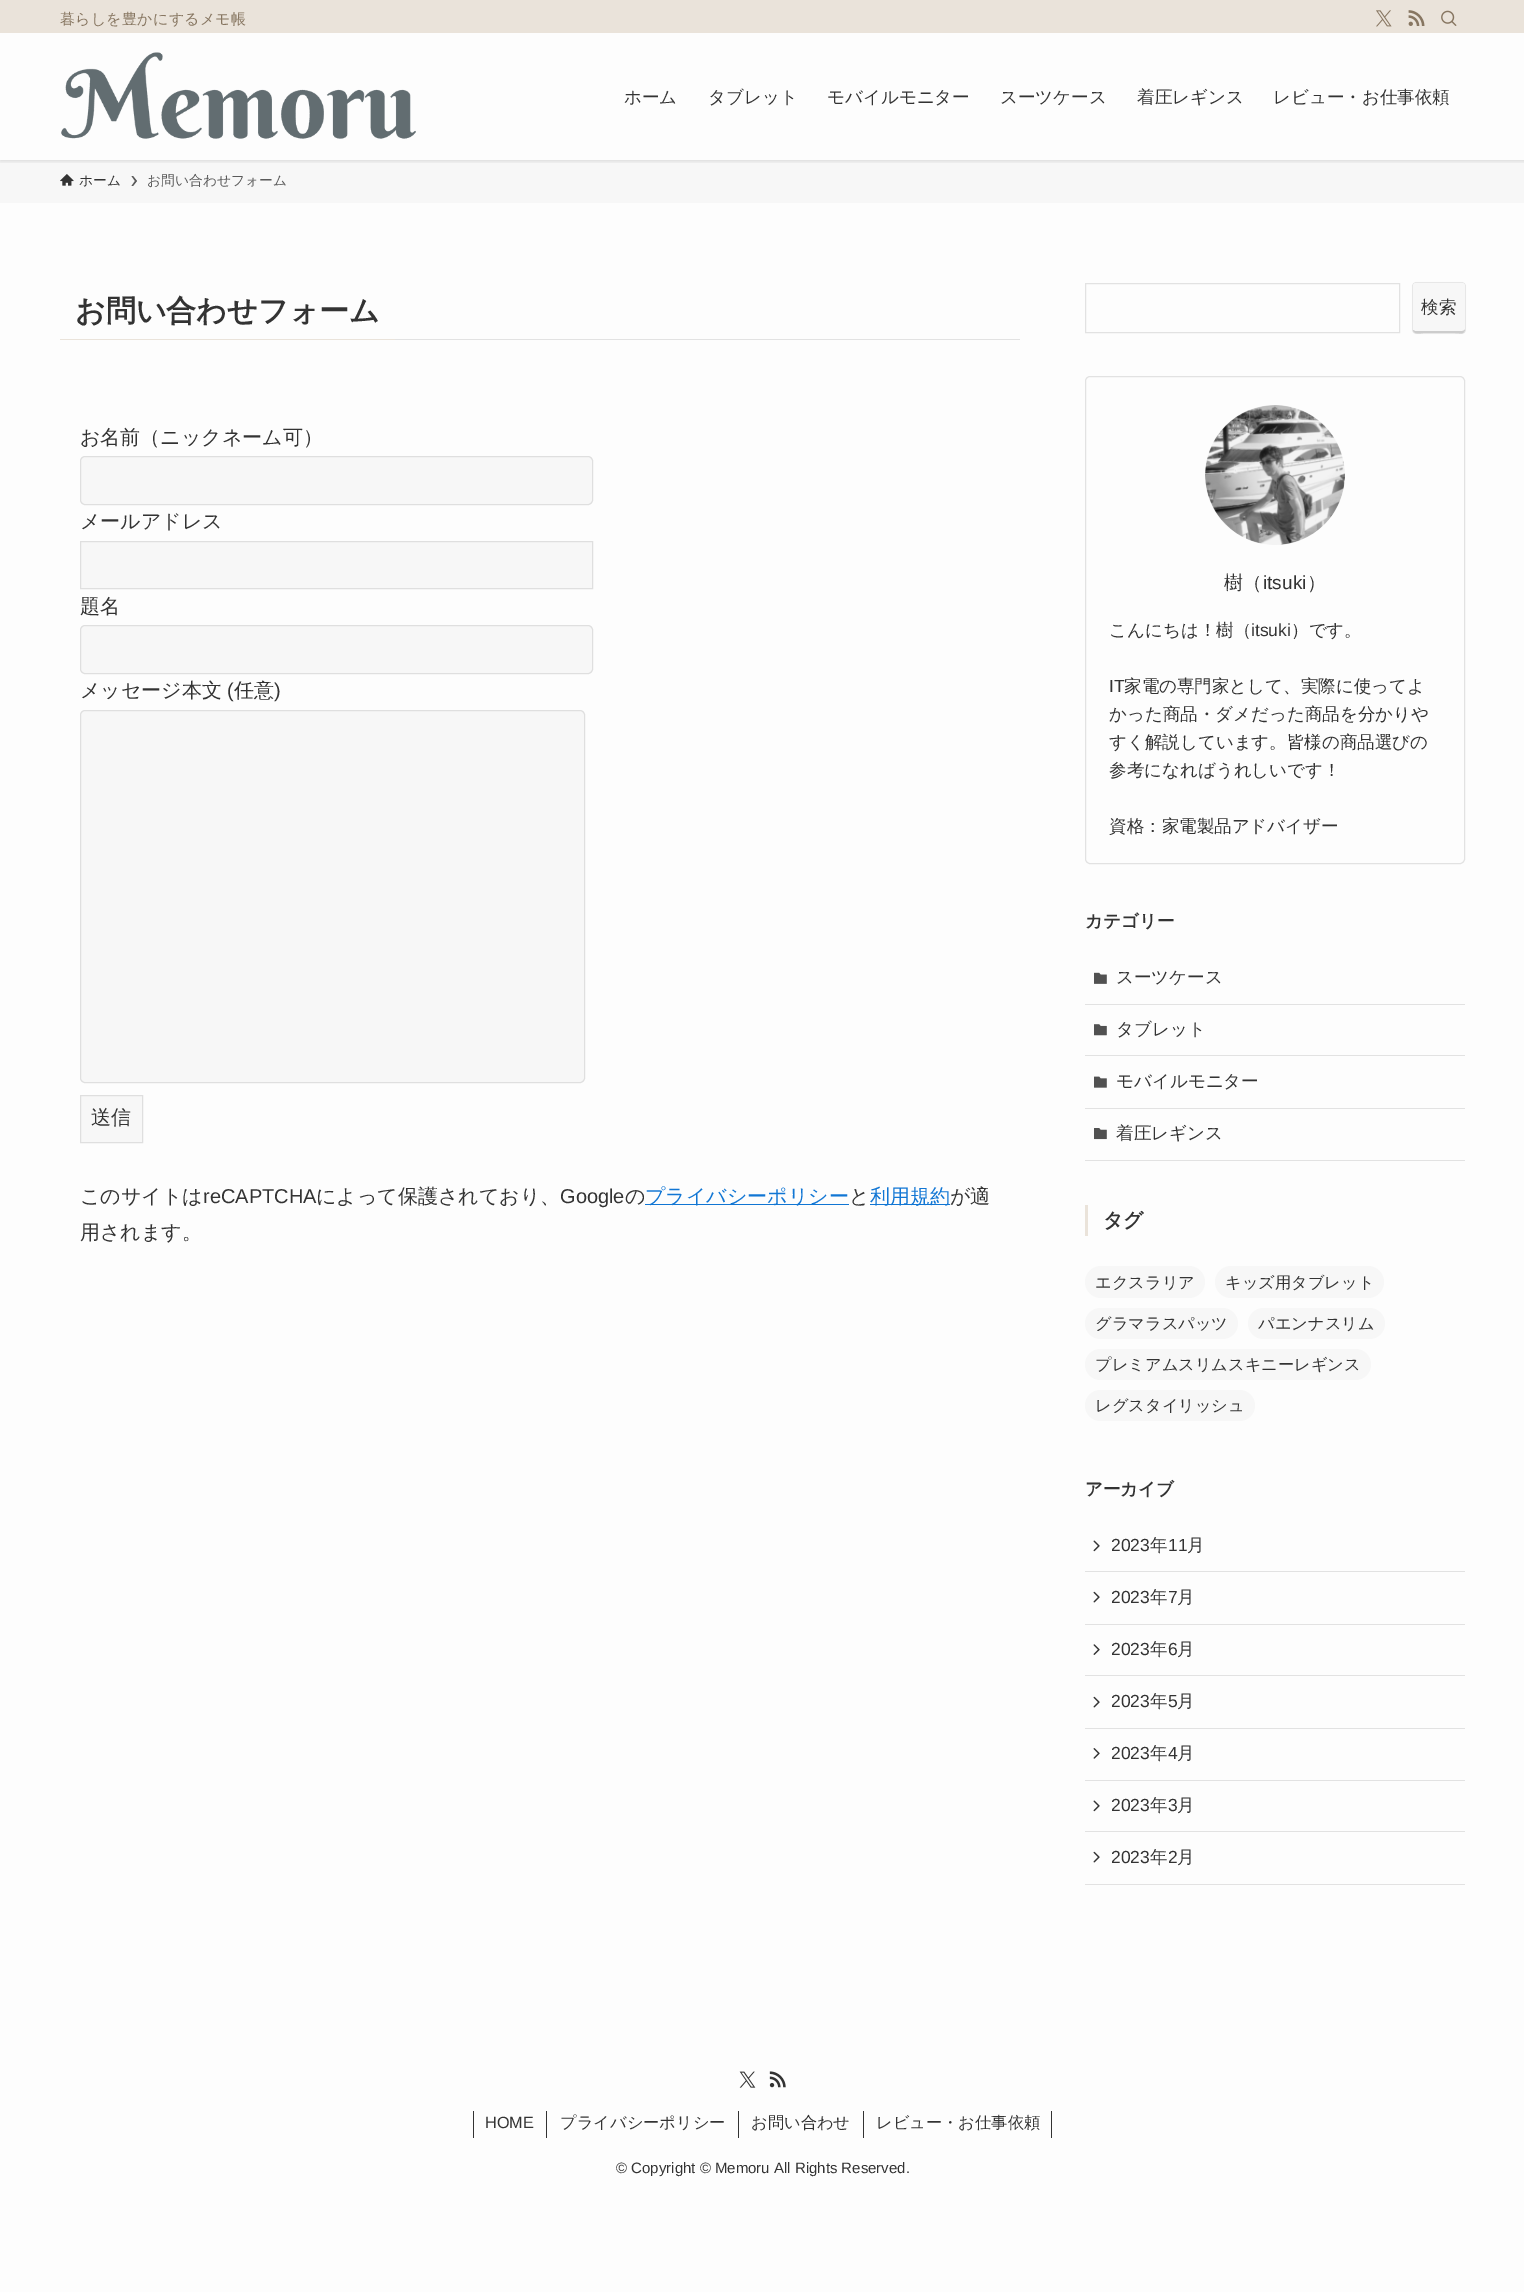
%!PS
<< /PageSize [1524 2292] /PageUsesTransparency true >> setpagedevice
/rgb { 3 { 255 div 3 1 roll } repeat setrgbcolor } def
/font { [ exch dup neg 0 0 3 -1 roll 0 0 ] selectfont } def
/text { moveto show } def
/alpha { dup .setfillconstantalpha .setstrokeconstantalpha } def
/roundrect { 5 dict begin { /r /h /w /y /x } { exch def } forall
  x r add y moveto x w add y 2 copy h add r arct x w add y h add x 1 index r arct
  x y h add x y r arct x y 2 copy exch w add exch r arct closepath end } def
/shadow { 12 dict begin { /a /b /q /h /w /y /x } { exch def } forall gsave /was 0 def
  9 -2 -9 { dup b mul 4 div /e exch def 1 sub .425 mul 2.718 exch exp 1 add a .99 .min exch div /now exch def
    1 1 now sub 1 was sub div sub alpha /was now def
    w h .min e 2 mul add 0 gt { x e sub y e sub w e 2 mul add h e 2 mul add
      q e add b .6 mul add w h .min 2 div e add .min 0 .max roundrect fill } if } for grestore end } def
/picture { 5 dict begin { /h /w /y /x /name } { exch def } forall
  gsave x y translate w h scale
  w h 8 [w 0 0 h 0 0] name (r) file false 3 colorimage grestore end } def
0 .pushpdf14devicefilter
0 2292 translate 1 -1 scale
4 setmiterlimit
253 253 253 rgb
0 0 1524 2292 rectfill
247 247 247 rgb
0 160 1524 43 rectfill
gsave
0 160 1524 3 rectclip
0 0 0 rgb
0 1 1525 160 0 2.5 0.12 shadow
grestore
234 227 218 rgb
0 0 1524 33 rectfill
(img_01.rgb) 1376 10 16 17 picture
(img_02.rgb) 1408 10 17 16 picture
(img_03.rgb) 1441 10 16 16 picture
(img_04.rgb) 61 52 355 87 picture
(img_05.rgb) 60 174 14 12 picture
90 90 90 rgb
133 176 moveto -1.5 0 rlineto 3.5 5 rlineto -3.5 5 rlineto 1.5 0 rlineto 4 -5 rlineto closepath fill
226 226 226 rgb
395 339 625 1 rectfill
234 227 218 rgb
60 339 335 1 rectfill
247 247 247 rgb
80 456 513 49 5 roundrect fill
0.5 alpha
199 199 199 rgb
80.5 456.5 512 48 4.5 roundrect stroke
1 alpha
247 247 247 rgb
80.5 541.5 moveto 512 0 rlineto 0 47 rlineto -512 0 rlineto closepath gsave fill grestore
223 223 223 rgb
stroke
247 247 247 rgb
80 625 513 49 5 roundrect fill
0.5 alpha
199 199 199 rgb
80.5 625.5 512 48 4.5 roundrect stroke
1 alpha
247 247 247 rgb
80 710 505 373 5 roundrect fill
0.5 alpha
199 199 199 rgb
80.5 710.5 504 372 4.5 roundrect stroke
1 alpha
247 247 247 rgb
80.5 1095.5 moveto 62 0 rlineto 0 47 rlineto -62 0 rlineto closepath gsave fill grestore
223 223 223 rgb
stroke
17 118 212 rgb
645 1204 204 1 rectfill
870 1204 80 1 rectfill
226 226 226 rgb
1085.5 283.5 314 49 rectstroke
170 170 170 rgb
1413 283 52 50 2.5 0.5 1 shadow
247 247 247 rgb
1413 283 52 50 2.5 roundrect fill
204 204 204 rgb
1413 330 moveto 0 5 9 3 10 3 rcurveto 32 0 rlineto 5 0 10 2 10 -4 rcurveto 0 1 -1 2 -3 2 rcurveto -47 0 rlineto closepath fill
226 226 226 rgb
1085.5 376.5 379 487 4.5 roundrect stroke
(img_06.rgb) 1205 405 140 140 picture
1085 1004 380 1 rectfill
(img_07.rgb) 1094 972 13 12 picture
1085 1055 380 1 rectfill
(img_08.rgb) 1094 1024 13 12 picture
1085 1108 380 1 rectfill
(img_09.rgb) 1094 1076 13 12 picture
1085 1160 380 1 rectfill
(img_10.rgb) 1094 1128 13 12 picture
234 227 218 rgb
1085 1205 3 31 rectfill
247 247 247 rgb
1085 1266 120 32 16 roundrect fill
1215 1266 169 32 16 roundrect fill
1085 1308 153 31 15.5 roundrect fill
1248 1308 137 31 15.5 roundrect fill
1085 1349 286 31 15.5 roundrect fill
1085 1390 170 31 15.5 roundrect fill
226 226 226 rgb
1085 1571 380 1 rectfill
(img_11.rgb) 1093 1540 7 12 picture
1085 1624 380 1 rectfill
(img_12.rgb) 1093 1591 7 12 picture
1085 1675 380 1 rectfill
(img_13.rgb) 1093 1644 7 11 picture
1085 1728 380 1 rectfill
(img_12.rgb) 1093 1696 7 12 picture
1085 1780 380 1 rectfill
(img_14.rgb) 1093 1748 7 11 picture
1085 1831 380 1 rectfill
(img_11.rgb) 1093 1800 7 12 picture
1085 1884 380 1 rectfill
(img_12.rgb) 1093 1851 7 12 picture
(img_15.rgb) 739 2071 17 17 picture
(img_16.rgb) 769 2071 17 17 picture
51 51 51 rgb
546 2111 1 27 rectfill
473 2111 1 27 rectfill
738 2111 1 27 rectfill
863 2111 1 27 rectfill
1051 2111 1 27 rectfill
/WenQuanYiZenHei-Medium 15 font
135 118 97 rgb
60 24 moveto 0.25 0 (暮らしを豊かにするメモ帳) ashow
/WenQuanYiZenHei-Medium 17.5 font
51 51 51 rgb
(ホーム) 624 103 text
(タブレット) 708 103 text
(モバイルモニター) 827 103 text
(スーツケース) 1000 103 text
(着圧レギンス) 1137 103 text
(レビュー・お仕事依頼) 1273 103 text
/WenQuanYiZenHei-Medium 13.75 font
(ホーム) 79 185 text
90 90 90 rgb
(お問い合わせフォーム) 147 185 text
/WenQuanYiZenHei-Bold 30 font
51 51 51 rgb
(お問い合わせフォーム) 75 321 text
/WenQuanYiZenHei-Medium 20 font
(お名前（ニックネーム可）) 80 444 text
(メールアドレス) 80 528 text
(題名) 80 613 text
(メッセージ本文) 80 697 text
/LiberationSans-Regular 20 font
(\() 227 697 text
/WenQuanYiZenHei-Medium 20 font
(任意) 234 697 text
/LiberationSans-Regular 20 font
(\)) 274 697 text
/WenQuanYiZenHei-Medium 20 font
(送信) 91 1124 text
(このサイトは) 80 1203 text
/LiberationSans-Regular 20 font
(reCAPTCHA) 203 1203 text
/WenQuanYiZenHei-Medium 20 font
(によって保護されており、) 316 1203 text
/LiberationSans-Regular 20 font
(Google) 560 1203 text
/WenQuanYiZenHei-Medium 20 font
(の) 625 1203 text
17 118 212 rgb
(プライバシーポリシー) 645 1203 text
51 51 51 rgb
(と) 849 1203 text
17 118 212 rgb
(利用規約) 870 1203 text
51 51 51 rgb
(が適) 950 1203 text
(用されます。) 80 1239 text
/WenQuanYiZenHei-Medium 17.5 font
(検索) 1421 313 text
/WenQuanYiZenHei-Medium 19 font
(樹（) 1224 589 text
/LiberationSans-Regular 19 font
(itsuki) 1263 589 text
/WenQuanYiZenHei-Medium 19 font
(）) 1307 589 text
/WenQuanYiZenHei-Medium 17.5 font
(こんにちは！樹（) 1109 636 text
/LiberationSans-Regular 17.5 font
(itsuki) 1251 636 text
/WenQuanYiZenHei-Medium 17.5 font
(）です。) 1291 636 text
/LiberationSans-Regular 17.5 font
(IT) 1109 692 text
/WenQuanYiZenHei-Medium 17.5 font
(家電の専門家として、実際に使ってよ) 1124 692 text
(かった商品・ダメだった商品を分かりや) 1109 720 text
(すく解説しています。皆様の商品選びの) 1109 748 text
(参考になればうれしいです！) 1109 776 text
(資格：家電製品アドバイザー) 1109 832 text
/WenQuanYiZenHei-Bold 17.5 font
(カテゴリー) 1085 927 text
/WenQuanYiZenHei-Medium 17.5 font
(スーツケース) 1116 983 text
(タブレット) 1116 1035 text
(モバイルモニター) 1116 1087 text
(着圧レギンス) 1116 1139 text
/WenQuanYiZenHei-Bold 20 font
(タグ) 1103 1227 text
/WenQuanYiZenHei-Medium 16.25 font
(エクスラリア) 1095 1288 text
(キッズ用タブレット) 1225 1288 text
(グラマラスパッツ) 1095 1329 text
(パエンナスリム) 1258 1329 text
(プレミアムスリムスキニーレギンス) 1095 1370 text
(レグスタイリッシュ) 1095 1411 text
/WenQuanYiZenHei-Bold 17.5 font
(アーカイブ) 1085 1495 text
/LiberationSans-Regular 17.5 font
(2023) 1111 1551 text
/WenQuanYiZenHei-Medium 17.5 font
(年) 1150 1551 text
/LiberationSans-Regular 17.5 font
(11) 1168 1551 text
/WenQuanYiZenHei-Medium 17.5 font
(月) 1187 1551 text
/LiberationSans-Regular 17.5 font
(2023) 1111 1603 text
/WenQuanYiZenHei-Medium 17.5 font
(年) 1150 1603 text
/LiberationSans-Regular 17.5 font
(7) 1168 1603 text
/WenQuanYiZenHei-Medium 17.5 font
(月) 1177 1603 text
/LiberationSans-Regular 17.5 font
(2023) 1111 1655 text
/WenQuanYiZenHei-Medium 17.5 font
(年) 1150 1655 text
/LiberationSans-Regular 17.5 font
(6) 1168 1655 text
/WenQuanYiZenHei-Medium 17.5 font
(月) 1177 1655 text
/LiberationSans-Regular 17.5 font
(2023) 1111 1707 text
/WenQuanYiZenHei-Medium 17.5 font
(年) 1150 1707 text
/LiberationSans-Regular 17.5 font
(5) 1168 1707 text
/WenQuanYiZenHei-Medium 17.5 font
(月) 1177 1707 text
/LiberationSans-Regular 17.5 font
(2023) 1111 1759 text
/WenQuanYiZenHei-Medium 17.5 font
(年) 1150 1759 text
/LiberationSans-Regular 17.5 font
(4) 1168 1759 text
/WenQuanYiZenHei-Medium 17.5 font
(月) 1177 1759 text
/LiberationSans-Regular 17.5 font
(2023) 1111 1811 text
/WenQuanYiZenHei-Medium 17.5 font
(年) 1150 1811 text
/LiberationSans-Regular 17.5 font
(3) 1168 1811 text
/WenQuanYiZenHei-Medium 17.5 font
(月) 1177 1811 text
/LiberationSans-Regular 17.5 font
(2023) 1111 1863 text
/WenQuanYiZenHei-Medium 17.5 font
(年) 1150 1863 text
/LiberationSans-Regular 17.5 font
(2) 1168 1863 text
/WenQuanYiZenHei-Medium 17.5 font
(月) 1177 1863 text
/LiberationSans-Regular 16.25 font
(HOME) 485 2128 text
/WenQuanYiZenHei-Medium 16.25 font
(プライバシーポリシー) 560 2128 text
(お問い合わせ) 751 2128 text
(レビュー・お仕事依頼) 876 2128 text
/LiberationSans-Regular 15 font
(© Copyright © Memoru All Rights Reserved.) 616 2173 text
.poppdf14devicefilter showpage
